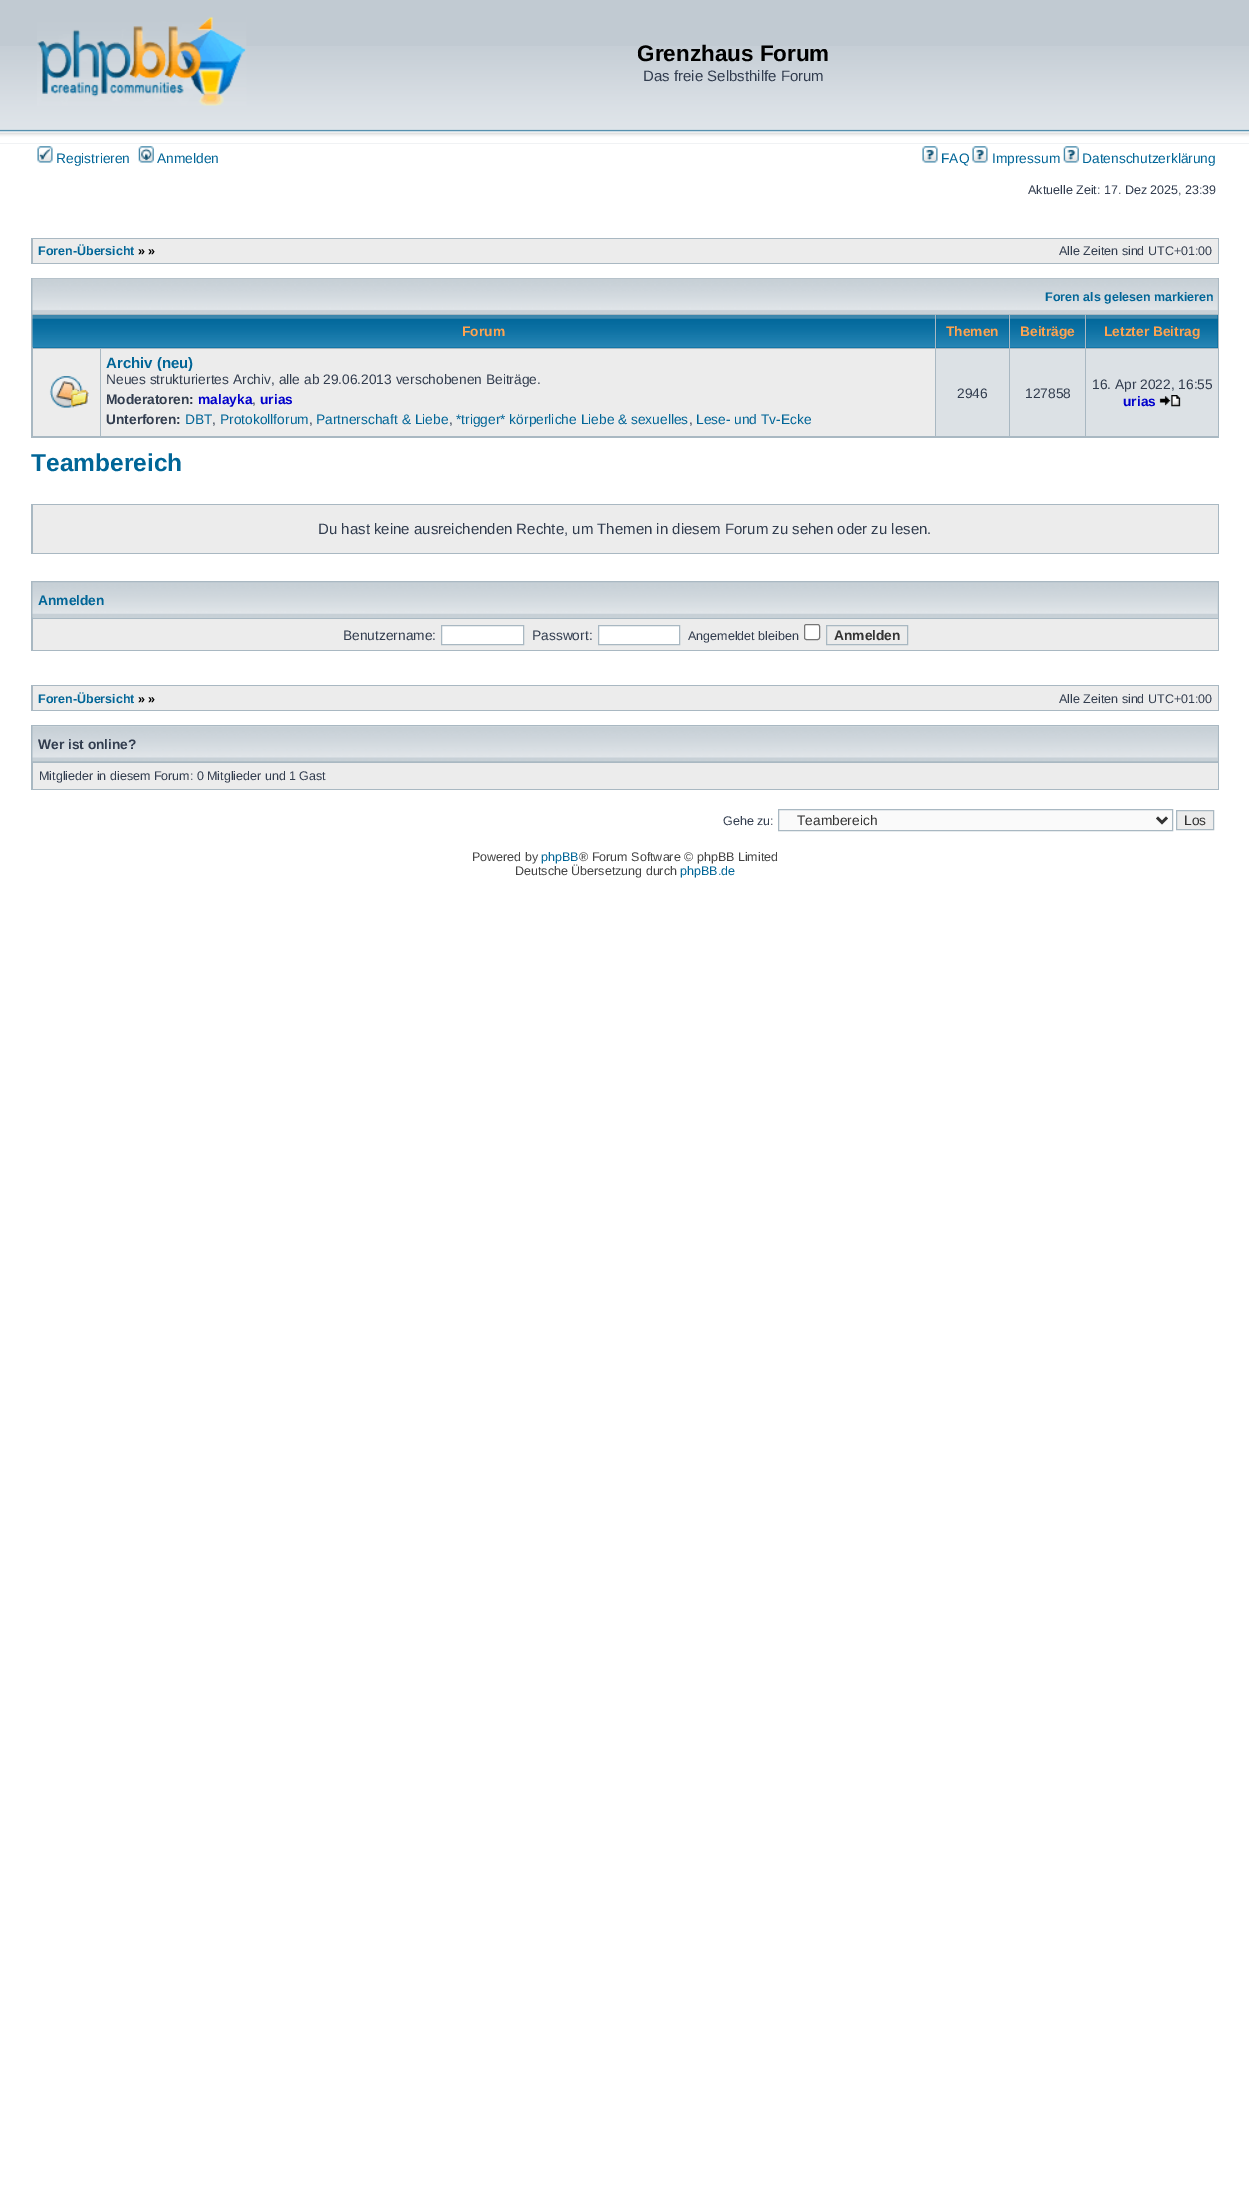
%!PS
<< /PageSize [1249 2203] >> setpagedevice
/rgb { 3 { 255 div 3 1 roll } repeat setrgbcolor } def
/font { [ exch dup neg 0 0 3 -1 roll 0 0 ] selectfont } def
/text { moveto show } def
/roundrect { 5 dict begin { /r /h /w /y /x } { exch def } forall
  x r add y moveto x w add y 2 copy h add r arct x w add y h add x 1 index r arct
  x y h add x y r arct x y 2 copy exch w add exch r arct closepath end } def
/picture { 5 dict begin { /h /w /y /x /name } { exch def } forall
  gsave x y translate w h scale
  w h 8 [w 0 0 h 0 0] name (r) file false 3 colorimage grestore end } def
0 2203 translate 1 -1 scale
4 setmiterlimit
255 255 255 rgb
0 0 1249 2203 rectfill
193 202 210 rgb
0 0 1249 144 rectfill
(img_01.rgb) 0 46 1249 98 picture
(img_02.rgb) 37 17 210 89 picture
(img_03.rgb) 37 146 16 17 picture
(img_04.rgb) 138 146 16 17 picture
(img_05.rgb) 922 146 16 17 picture
(img_05.rgb) 972 146 16 17 picture
(img_06.rgb) 1063 146 16 17 picture
169 184 194 rgb
31 238 1188 26 rectfill
236 236 236 rgb
33 239 1185 24 rectfill
169 184 194 rgb
31 278 1188 160 rectfill
199 208 215 rgb
33 279 1185 35 rectfill
(img_07.rgb) 32 278 1186 36 picture
0 102 153 rgb
33 347 902 1 rectfill
(img_08.rgb) 32 315 903 33 picture
936 315 73 33 rectfill
(img_09.rgb) 936 315 73 33 picture
1010 347 75 1 rectfill
(img_10.rgb) 1010 315 75 33 picture
1086 315 132 33 rectfill
(img_11.rgb) 1086 315 132 33 picture
236 236 236 rgb
33 349 67 87 rectfill
(img_12.rgb) 49 376 40 32 picture
101 349 834 87 rectfill
220 225 229 rgb
936 349 73 87 rectfill
1010 349 75 87 rectfill
1086 349 132 87 rectfill
(img_13.rgb) 1159 395 22 12 picture
169 184 194 rgb
31 504 1188 50 rectfill
236 236 236 rgb
33 505 1185 48 rectfill
169 184 194 rgb
31 581 1188 70 rectfill
199 208 215 rgb
33 583 1185 35 rectfill
(img_14.rgb) 32 582 1186 36 picture
236 236 236 rgb
33 619 1185 31 rectfill
255 255 255 rgb
441.5 625.5 moveto 82 0 rlineto 0 19 rlineto -82 0 rlineto closepath gsave fill grestore
169 184 194 rgb
stroke
255 255 255 rgb
598.5 625.5 moveto 81 0 rlineto 0 19 rlineto -81 0 rlineto closepath gsave fill grestore
169 184 194 rgb
stroke
255 255 255 rgb
804.5 624.5 15 15 2 roundrect gsave fill grestore
118 118 118 rgb
stroke
169 184 194 rgb
826.5 625.5 81 19 rectstroke
31 685 1188 26 rectfill
236 236 236 rgb
33 686 1185 24 rectfill
169 184 194 rgb
31 725 1188 65 rectfill
199 208 215 rgb
33 726 1185 35 rectfill
(img_15.rgb) 32 726 1186 36 picture
236 236 236 rgb
33 763 1185 26 rectfill
250 250 250 rgb
778.5 809.5 moveto 394 0 rlineto 0 21 rlineto -394 0 rlineto closepath gsave fill grestore
169 184 194 rgb
stroke
51 51 51 rgb
2.5 setlinewidth
1157 817.5 moveto 5 5 rlineto 5 -5 rlineto stroke
236 236 236 rgb
1176.5 810.5 moveto 37 0 rlineto 0 19 rlineto -37 0 rlineto closepath gsave fill grestore
169 184 194 rgb
1 setlinewidth
stroke
/LiberationSans-Bold 22.5 font
0 0 0 rgb
(Grenzhaus Forum) 637 61 text
/LiberationSans-Regular 15 font
50 61 79 rgb
(Das freie Selbsthilfe Forum) 643 81 text
/LiberationSans-Regular 13.75 font
0 101 151 rgb
(Registrieren) 56 163 text
(Anmelden) 157 163 text
(FAQ) 941 163 text
(Impressum) 992 163 text
(Datenschutzerklärung) 1082 163 text
/LiberationSans-Regular 12.5 font
50 61 79 rgb
(Aktuelle Zeit: 17. Dez 2025, 23:39) 1028 194 text
/LiberationSans-Bold 12.5 font
0 101 151 rgb
(Foren-Übersicht) 38 255 text
0 0 0 rgb
(» ») 138 255 text
/LiberationSans-Regular 12.5 font
50 61 79 rgb
(Alle Zeiten sind UTC+01:00) 1059 255 text
/LiberationSans-Bold 12.5 font
0 101 151 rgb
(Foren als gelesen markieren) 1045 301 text
/LiberationSans-Bold 13.75 font
255 163 79 rgb
(Forum) 462 336 text
(Themen) 946 336 text
(Beiträge) 1020 336 text
(Letzter Beitrag) 1104 336 text
/LiberationSans-Bold 15 font
0 101 151 rgb
(Archiv \(neu\)) 106 368 text
/LiberationSans-Regular 13.75 font
50 61 79 rgb
(Neues strukturiertes Archiv, alle ab 29.06.2013 verschobenen Beiträge.) 106 384 text
/LiberationSans-Bold 13.75 font
(Moderatoren:) 106 404 text
0 0 204 rgb
(malayka) 198 404 text
/LiberationSans-Regular 13.75 font
50 61 79 rgb
(,) 252 404 text
/LiberationSans-Bold 13.75 font
0 0 204 rgb
(urias) 260 404 text
50 61 79 rgb
(Unterforen:) 106 424 text
/LiberationSans-Regular 13.75 font
0 101 151 rgb
(DBT) 185 424 text
50 61 79 rgb
(,) 212 424 text
0 101 151 rgb
(Protokollforum) 220 424 text
50 61 79 rgb
(,) 309 424 text
0 101 151 rgb
(Partnerschaft & Liebe) 316 424 text
50 61 79 rgb
(,) 449 424 text
0 101 151 rgb
(*trigger* körperliche Liebe & sexuelles) 456 424 text
50 61 79 rgb
(,) 689 424 text
0 101 151 rgb
(Lese- und Tv-Ecke) 696 424 text
50 61 79 rgb
(2946) 957 398 text
(127858) 1025 398 text
(16. Apr 2022, 16:55) 1092 389 text
/LiberationSans-Bold 13.75 font
0 0 204 rgb
(urias) 1123 406 text
/LiberationSans-Bold 24.5 font
0 101 151 rgb
(Teambereich) 31 471 text
/LiberationSans-Regular 15 font
50 61 79 rgb
(Du hast keine ausreichenden Rechte, um Themen in diesem Forum zu sehen oder zu lesen.) 318 534 text
/LiberationSans-Bold 13.75 font
0 101 151 rgb
(Anmelden) 38 605 text
/LiberationSans-Regular 13.75 font
50 61 79 rgb
(Benutzername:) 343 640 text
(Passwort:) 532 640 text
/LiberationSans-Regular 12.5 font
(Angemeldet bleiben) 688 640 text
/LiberationSans-Bold 13.75 font
51 51 51 rgb
(Anmelden) 834 640 text
/LiberationSans-Bold 12.5 font
0 101 151 rgb
(Foren-Übersicht) 38 703 text
0 0 0 rgb
(» ») 138 703 text
/LiberationSans-Regular 12.5 font
50 61 79 rgb
(Alle Zeiten sind UTC+01:00) 1059 703 text
/LiberationSans-Bold 13.75 font
(Wer ist online?) 38 749 text
/LiberationSans-Regular 12.5 font
(Mitglieder in diesem Forum: 0 Mitglieder und 1 Gast) 39 780 text
(Gehe zu:) 723 825 text
/LiberationSans-Regular 13.75 font
51 51 51 rgb
(Teambereich) 797 825 text
(Los) 1184 825 text
/LiberationSans-Regular 12.5 font
68 68 68 rgb
(Powered by) 472 861 text
0 101 151 rgb
(phpBB) 541 861 text
68 68 68 rgb
(® Forum Software © phpBB Limited) 579 861 text
(Deutsche Übersetzung durch) 515 875 text
0 101 151 rgb
(phpBB.de) 680 875 text
showpage
